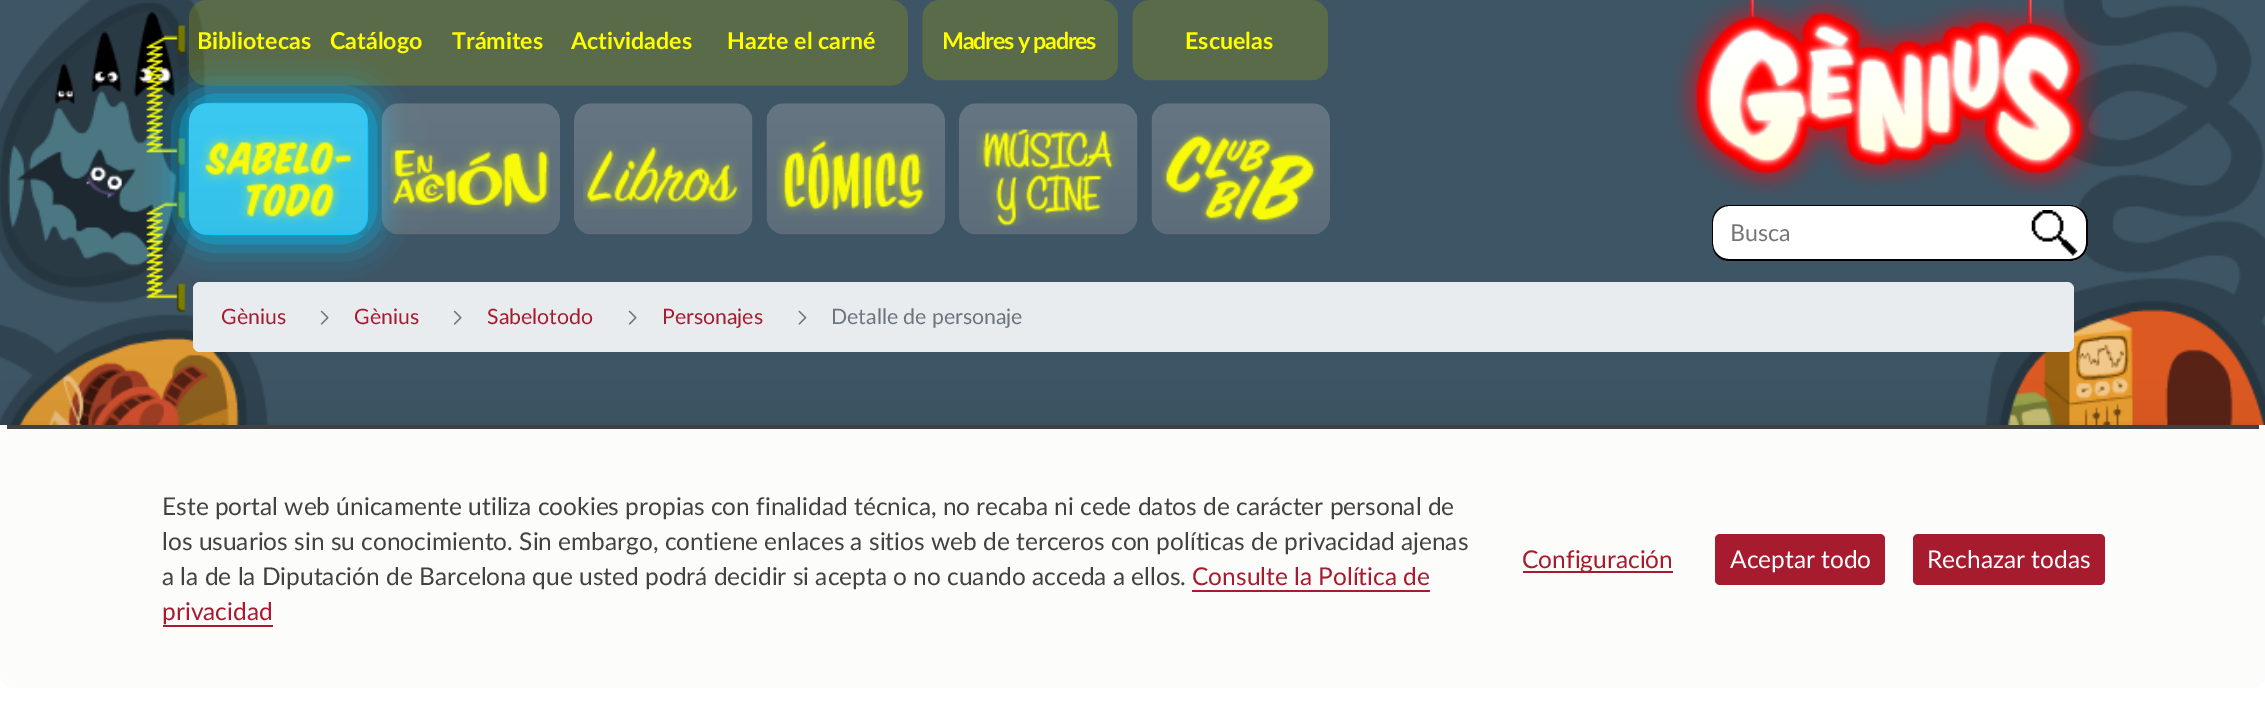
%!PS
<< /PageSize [2265 704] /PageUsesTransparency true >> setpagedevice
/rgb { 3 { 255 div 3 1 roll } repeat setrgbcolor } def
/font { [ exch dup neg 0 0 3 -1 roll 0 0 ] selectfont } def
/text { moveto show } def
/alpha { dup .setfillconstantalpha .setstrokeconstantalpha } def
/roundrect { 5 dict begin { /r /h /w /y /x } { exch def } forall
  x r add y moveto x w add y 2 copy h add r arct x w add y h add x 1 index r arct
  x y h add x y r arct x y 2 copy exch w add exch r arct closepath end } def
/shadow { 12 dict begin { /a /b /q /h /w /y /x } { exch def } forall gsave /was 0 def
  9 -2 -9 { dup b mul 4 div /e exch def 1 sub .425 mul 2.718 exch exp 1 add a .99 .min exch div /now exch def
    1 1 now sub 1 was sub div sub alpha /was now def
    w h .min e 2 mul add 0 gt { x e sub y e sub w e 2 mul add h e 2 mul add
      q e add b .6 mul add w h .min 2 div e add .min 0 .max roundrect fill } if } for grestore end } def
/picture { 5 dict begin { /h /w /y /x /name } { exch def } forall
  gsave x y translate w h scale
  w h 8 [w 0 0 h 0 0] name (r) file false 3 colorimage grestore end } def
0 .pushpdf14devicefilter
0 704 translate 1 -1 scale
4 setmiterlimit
255 255 255 rgb
0 0 2265 704 rectfill
(img_01.rgb) 0 0 2265 425 picture
(img_02.rgb) 146 25 40 288 picture
(img_03.rgb) 189 0 719 86 picture
(img_04.rgb) 922 0 196 81 picture
(img_04.rgb) 1132 0 196 81 picture
0 198 255 rgb
184 98 189 142 23 17.5 1 shadow
3 199 255 rgb
189 103 179 132 18 roundrect fill
(img_05.rgb) 189 103 179 132 picture
(img_06.rgb) 199 134 158 90 picture
(img_07.rgb) 381 103 179 132 picture
(img_08.rgb) 390 142 160 72 picture
(img_09.rgb) 574 103 179 132 picture
(img_10.rgb) 583 142 159 67 picture
(img_11.rgb) 766 103 179 132 picture
(img_12.rgb) 776 136 154 80 picture
(img_09.rgb) 959 103 179 132 picture
(img_13.rgb) 976 129 143 97 picture
(img_11.rgb) 1151 103 179 132 picture
(img_14.rgb) 1161 132 157 93 picture
(img_15.rgb) 1673 0 430 195 picture
255 255 255 rgb
1730 205 moveto 295 0 rlineto 0 56 rlineto -295 0 rlineto -10 0 -18 -8 -18 -18 rcurveto 0 -20 rlineto 0 -10 8 -18 18 -18 rcurveto closepath fill
0 0 0 rgb
1729 205 moveto 296 0 rlineto 0 56 rlineto -296 0 rlineto -10 0 -17 -8 -17 -18 rcurveto 0 -21 rlineto 0 -9 7 -17 17 -17 rcurveto closepath 1729 206 moveto 296 0 rlineto 0 53 rlineto -296 0 rlineto -9 0 -16 -7 -16 -16 rcurveto 0 -21 rlineto 0 -8 7 -16 16 -16 rcurveto closepath eofill
255 255 255 rgb
2025 205 moveto 45 0 rlineto 10 0 18 8 18 18 rcurveto 0 20 rlineto 0 10 -8 18 -18 18 rcurveto -45 0 rlineto closepath fill
(img_16.rgb) 2031 210 47 46 picture
0 0 0 rgb
2025 205 moveto 45 0 rlineto 10 0 18 8 18 17 rcurveto 0 21 rlineto 0 10 -8 18 -18 18 rcurveto -45 0 rlineto closepath 2025 206 moveto 45 0 rlineto 9 0 16 8 16 16 rcurveto 0 21 rlineto 0 9 -7 16 -16 16 rcurveto -45 0 rlineto closepath eofill
233 236 239 rgb
193 282 1881 70 7 roundrect fill
(img_17.rgb) 320 310 9 15 picture
(img_17.rgb) 453 310 9 15 picture
(img_17.rgb) 628 310 9 15 picture
(img_18.rgb) 798 310 9 15 picture
0 0 0 rgb
0 453 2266 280 0 42 0.18 shadow
255 255 255 rgb
0 425 2265 279 rectfill
252 252 251 rgb
0 425 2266 263 14 roundrect fill
0.74 alpha
0 0 0 rgb
7 425 2252 4 rectfill
1 alpha
167 27 46 rgb
1192 590 238 2 rectfill
163 625 110 2 rectfill
1523 571 150 2 rectfill
1715 534 170 51 5 roundrect fill
1913 534 192 51 5 roundrect fill
/Lato-Bold 23.25 font
255 255 0 rgb
(Bibliotecas) 197 49 text
(Catálogo) 330 49 text
(Trámites) 452 49 text
(Actividades) 571 49 text
(Hazte el carné) 727 49 text
942 49 moveto -1.2 0 (Madres y padres) ashow
(Escuelas) 1185 49 text
/Lato-Regular 23.25 font
117 117 117 rgb
(Busca) 1730 241 text
/Lato-Regular 21.25 font
167 27 46 rgb
(Gènius) 221 324 text
(Gènius) 354 324 text
(Sabelotodo) 487 324 text
(Personajes) 662 324 text
108 117 125 rgb
(Detalle de personaje) 831 324 text
/Lato-Regular 24.5 font
66 66 65 rgb
(Este portal web únicamente utiliza cookies propias con finalidad técnica, no recaba ni cede datos de carácter personal de) 162 515 text
(los usuarios sin su conocimiento. Sin embargo, contiene enlaces a sitios web de terceros con políticas de privacidad ajenas) 162 550 text
(a la de la Diputación de Barcelona que usted podrá decidir si acepta o no cuando acceda a ellos.) 162 585 text
167 27 46 rgb
(Consulte la Política de) 1192 585 text
(privacidad) 162 620 text
(Configuración) 1522 568 text
255 255 255 rgb
(Aceptar todo) 1730 568 text
(Rechazar todas) 1927 568 text
.poppdf14devicefilter showpage
